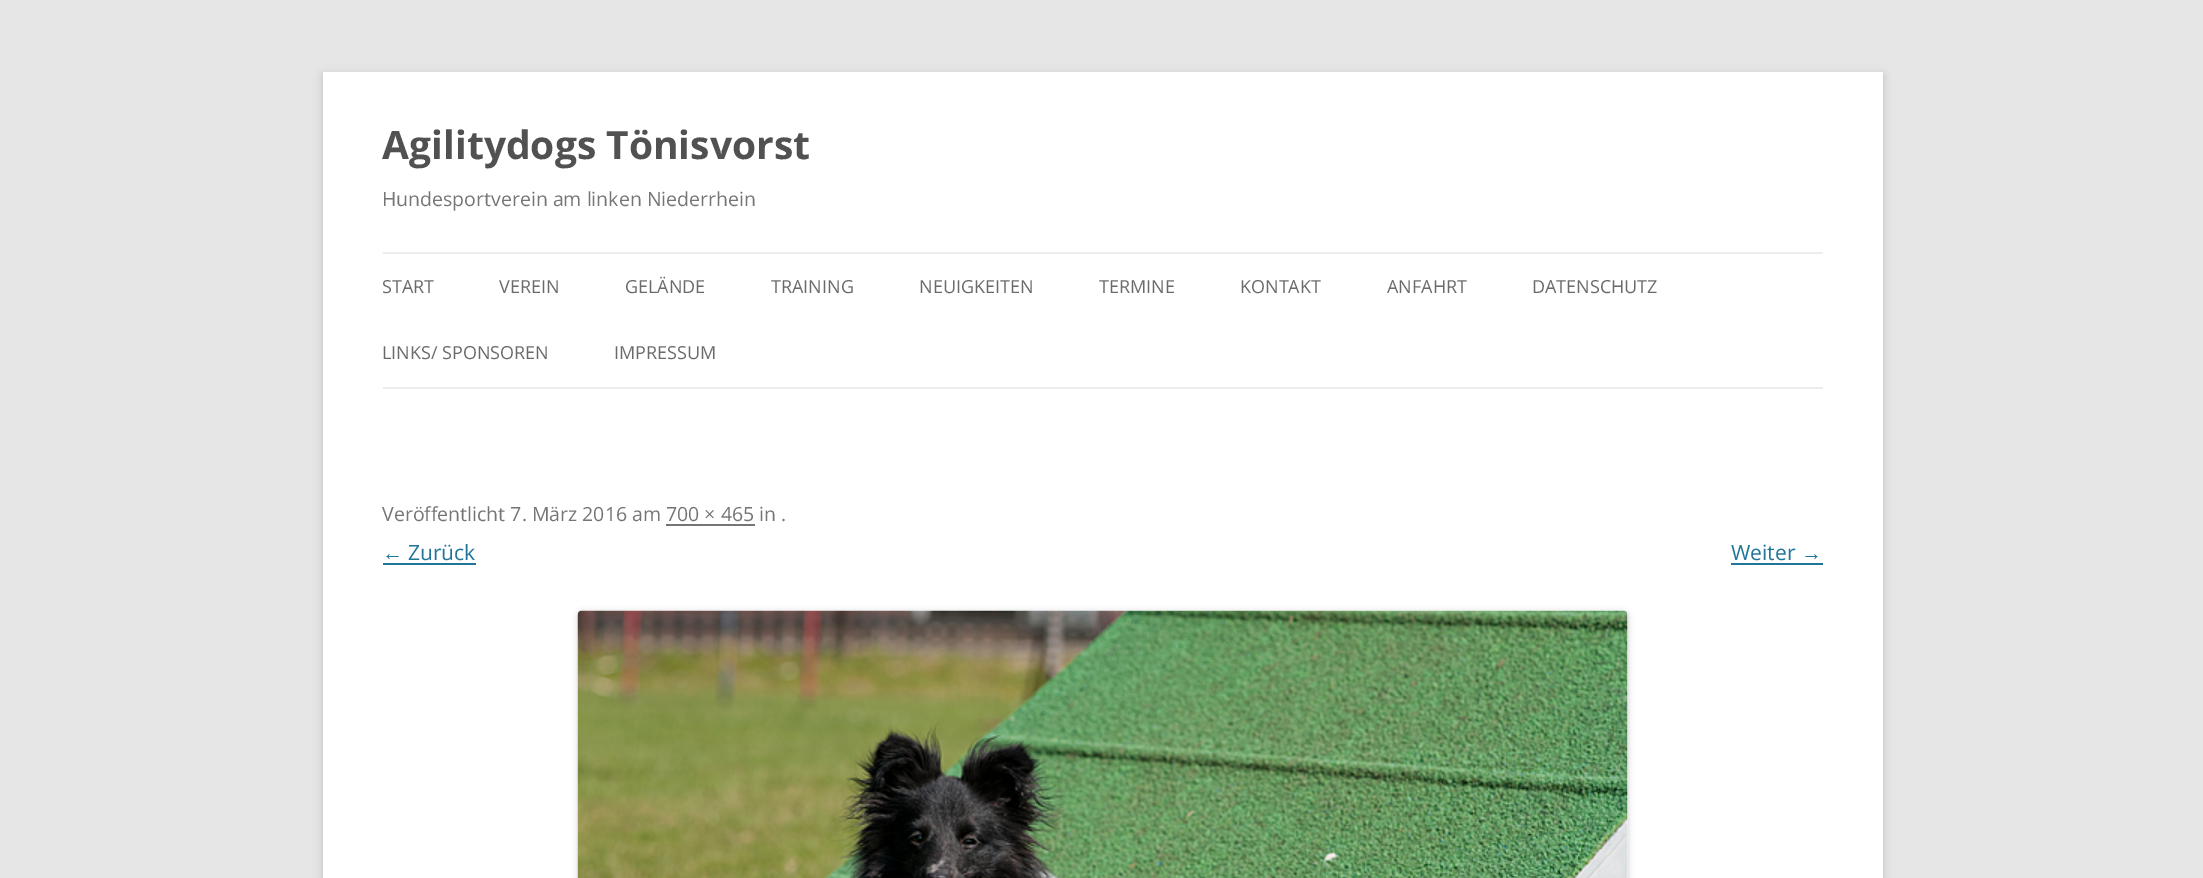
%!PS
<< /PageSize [2203 878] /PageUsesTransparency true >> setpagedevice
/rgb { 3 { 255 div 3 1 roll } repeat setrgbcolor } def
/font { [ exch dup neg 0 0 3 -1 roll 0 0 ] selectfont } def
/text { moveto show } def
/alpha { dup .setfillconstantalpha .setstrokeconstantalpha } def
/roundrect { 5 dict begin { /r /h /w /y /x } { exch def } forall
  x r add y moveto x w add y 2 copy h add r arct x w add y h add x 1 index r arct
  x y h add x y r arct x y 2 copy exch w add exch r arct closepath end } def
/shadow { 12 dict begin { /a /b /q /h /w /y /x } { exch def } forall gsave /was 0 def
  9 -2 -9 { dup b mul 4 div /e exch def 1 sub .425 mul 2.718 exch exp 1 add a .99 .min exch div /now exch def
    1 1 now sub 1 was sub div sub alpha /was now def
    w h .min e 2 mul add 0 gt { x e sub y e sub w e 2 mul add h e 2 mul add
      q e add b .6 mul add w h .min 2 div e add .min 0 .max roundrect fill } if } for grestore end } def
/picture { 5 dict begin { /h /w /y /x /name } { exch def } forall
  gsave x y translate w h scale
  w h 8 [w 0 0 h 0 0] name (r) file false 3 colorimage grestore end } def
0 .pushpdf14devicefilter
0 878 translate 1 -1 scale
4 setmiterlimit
230 230 230 rgb
0 0 2203 878 rectfill
100 100 100 rgb
323 75 1560 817 0 4.5 0.3 shadow
255 255 255 rgb
323 72 1560 806 rectfill
237 237 237 rgb
383 252 1440 2 rectfill
383 387 1440 2 rectfill
117 117 117 rgb
666 524 89 2 rectfill
33 117 155 rgb
383 563 93 2 rectfill
1731 563 92 2 rectfill
0 0 0 rgb
578 612 1050 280 5 3 0.2 shadow
(img_01.rgb) 577 610 1051 268 picture
/OpenSans-Bold 39 font
81 81 81 rgb
(Agilitydogs Tönisvorst) 382 159 text
/OpenSans-Regular 19.5 font
117 117 117 rgb
(Hundesportverein am linken Niederrhein) 382 206 text
/OpenSans-Regular 18 font
106 106 106 rgb
(START) 382 293 text
(VEREIN) 499 293 text
(GELÄNDE) 625 293 text
(TRAINING) 771 293 text
(NEUIGKEITEN) 919 293 text
(TERMINE) 1099 293 text
(KONTAKT) 1240 293 text
(ANFAHRT) 1387 293 text
(DATENSCHUTZ) 1532 293 text
(LINKS/ SPONSOREN) 382 359 text
(IMPRESSUM) 614 359 text
/OpenSans-Regular 19.5 font
117 117 117 rgb
(Veröffentlicht 7. März 2016 am 700 × 465 in .) 382 521 text
/LiberationSans-Regular 21 font
33 117 155 rgb
(←) 382 560 text
/OpenSans-Regular 21 font
(Zurück) 408 560 text
(Weiter) 1731 560 text
/LiberationSans-Regular 21 font
(→) 1801 560 text
.poppdf14devicefilter showpage
